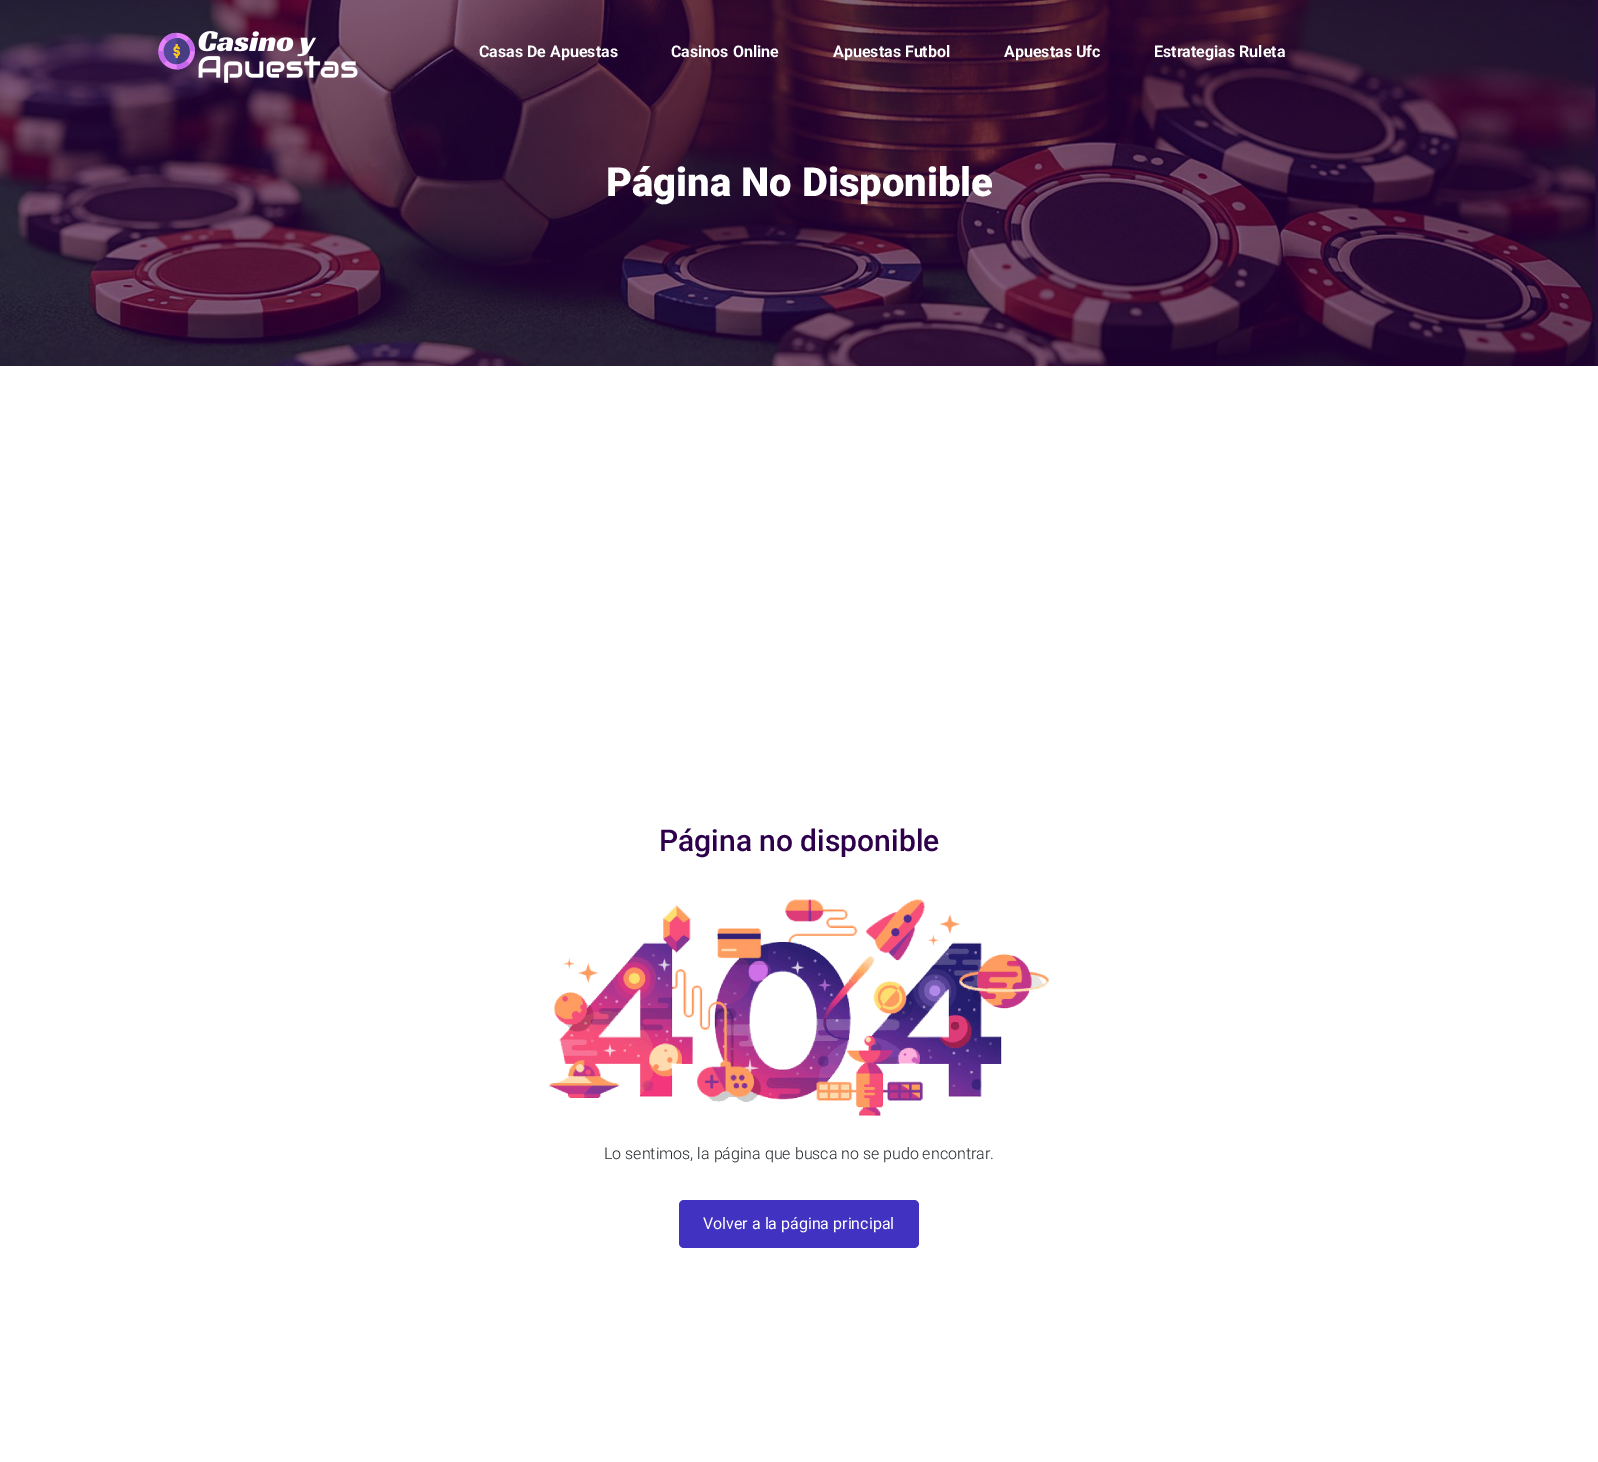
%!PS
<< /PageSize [1598 1462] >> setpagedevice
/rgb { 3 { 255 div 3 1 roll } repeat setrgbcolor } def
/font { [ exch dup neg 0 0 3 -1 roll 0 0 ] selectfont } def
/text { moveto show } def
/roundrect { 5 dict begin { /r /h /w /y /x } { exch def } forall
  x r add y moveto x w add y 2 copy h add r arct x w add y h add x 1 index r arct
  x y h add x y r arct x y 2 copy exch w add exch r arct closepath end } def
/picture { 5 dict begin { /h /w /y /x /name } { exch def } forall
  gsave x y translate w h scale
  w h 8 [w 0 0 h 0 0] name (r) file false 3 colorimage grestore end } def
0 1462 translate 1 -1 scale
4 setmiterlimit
255 255 255 rgb
0 0 1598 1462 rectfill
(img_02.rgb) 0 0 1598 366 picture
(img_01.rgb) 158 31 200 52 picture
(img_03.rgb) 549 899 500 217 picture
66 50 194 rgb
679 1200 240 48 5 roundrect fill
/Roboto-Bold 16 font
255 255 255 rgb
(Casas De Apuestas) 479 57 text
(Casinos Online) 671 57 text
(Apuestas Futbol) 833 57 text
(Apuestas Ufc) 1004 57 text
(Estrategias Ruleta) 1154 57 text
/Roboto-Black 40 font
(Página No Disponible) 606 196 text
/Roboto-Medium 30 font
46 0 75 rgb
(Página no disponible) 659 851 text
/Roboto-Light 16 font
33 37 41 rgb
(Lo sentimos, la página que busca no se pudo encontrar.) 604 1159 text
/Roboto-Regular 16 font
255 255 255 rgb
(Volver a la página principal) 703 1229 text
showpage
